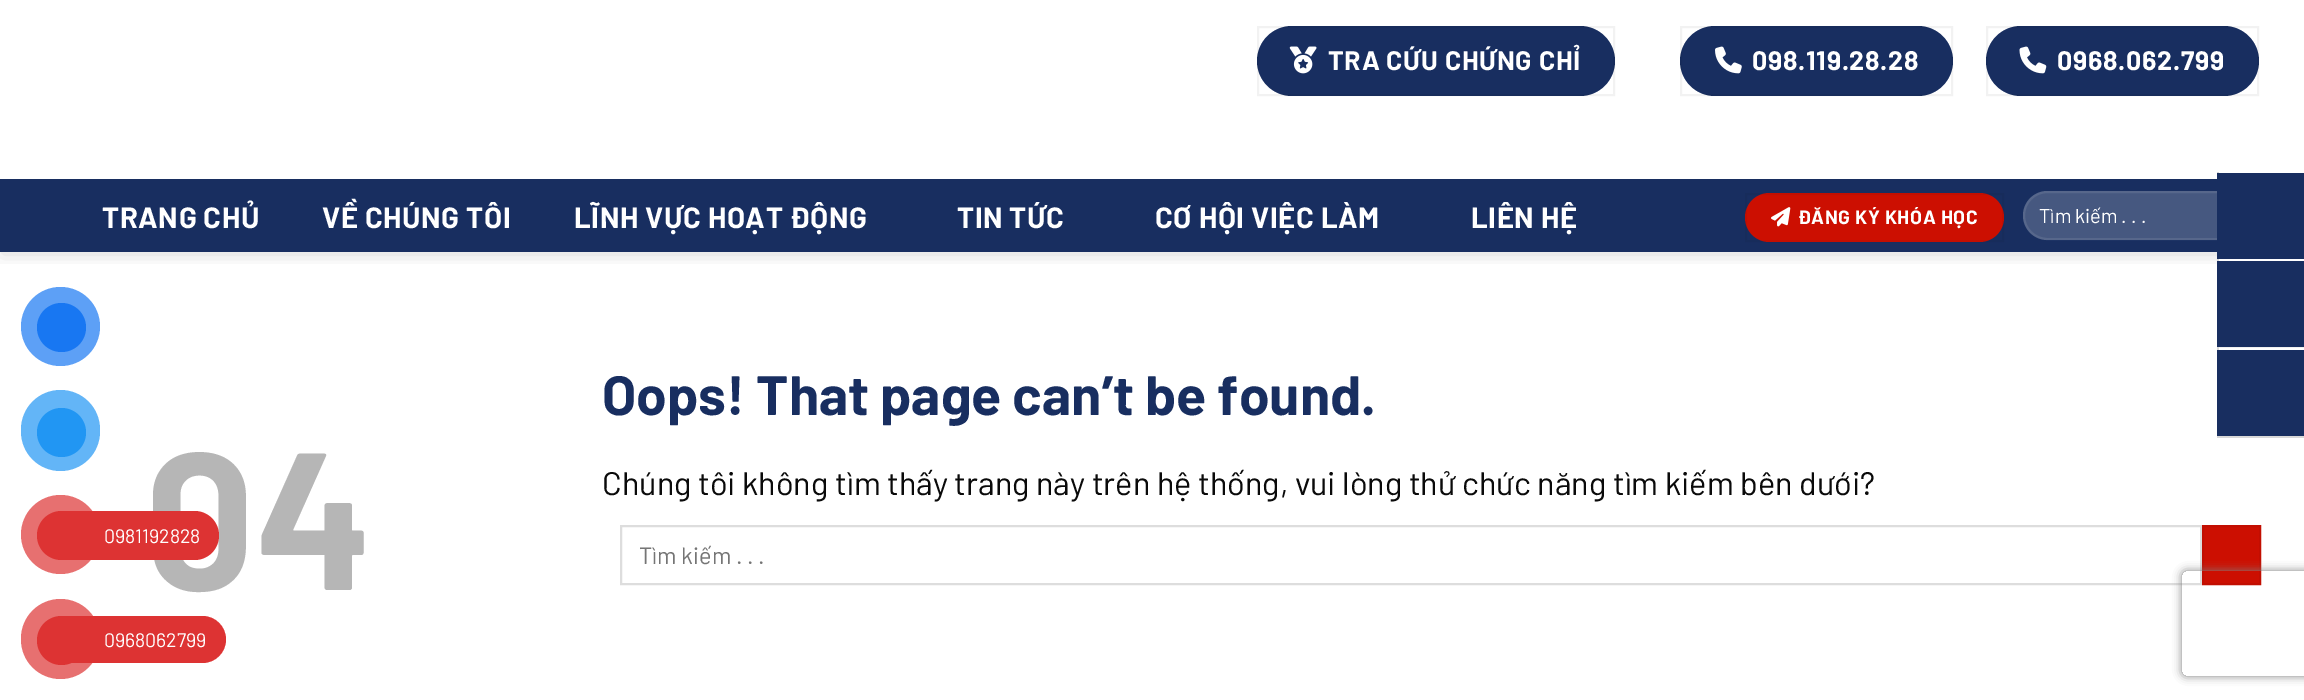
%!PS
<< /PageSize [2304 700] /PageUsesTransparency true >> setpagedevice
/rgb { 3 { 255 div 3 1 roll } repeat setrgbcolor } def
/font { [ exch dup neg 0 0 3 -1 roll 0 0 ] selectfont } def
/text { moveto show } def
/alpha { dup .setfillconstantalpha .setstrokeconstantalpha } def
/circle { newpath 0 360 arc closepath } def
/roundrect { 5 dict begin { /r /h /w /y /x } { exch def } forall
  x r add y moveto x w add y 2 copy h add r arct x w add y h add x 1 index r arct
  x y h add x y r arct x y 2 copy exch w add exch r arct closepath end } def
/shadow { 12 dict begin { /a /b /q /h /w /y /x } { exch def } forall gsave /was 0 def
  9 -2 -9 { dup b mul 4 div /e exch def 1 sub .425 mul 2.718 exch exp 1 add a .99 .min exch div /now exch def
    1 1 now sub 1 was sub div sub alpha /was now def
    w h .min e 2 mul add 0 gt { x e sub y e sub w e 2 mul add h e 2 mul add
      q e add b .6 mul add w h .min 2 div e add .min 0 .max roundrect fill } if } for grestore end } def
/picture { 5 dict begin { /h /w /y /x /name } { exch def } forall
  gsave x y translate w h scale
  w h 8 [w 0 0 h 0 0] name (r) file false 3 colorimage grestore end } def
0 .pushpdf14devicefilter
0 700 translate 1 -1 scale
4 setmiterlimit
255 255 255 rgb
0 0 2304 700 rectfill
gsave
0 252 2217 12 rectclip
0 0 0 rgb
2 2 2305 252 0 9 0.15 shadow
grestore
24 46 96 rgb
1257 26 358 70 35 roundrect fill
0.05 alpha
0 0 0 rgb
2 setlinewidth
1258 27 356 68 rectstroke
1 alpha
(img_01.rgb) 1289 46 28 28 picture
24 46 96 rgb
1680 26 273 70 35 roundrect fill
0.05 alpha
0 0 0 rgb
1681 27 271 68 rectstroke
1 alpha
(img_02.rgb) 1715 46 27 28 picture
24 46 96 rgb
1986 26 273 70 35 roundrect fill
0.05 alpha
0 0 0 rgb
1987 27 271 68 rectstroke
1 alpha
(img_03.rgb) 2019 46 28 28 picture
24 46 96 rgb
0 179 2217 73 rectfill
204 15 1 rgb
1745 193 259 49 24.5 roundrect fill
0.05 alpha
0 0 0 rgb
1746 194 257 47 rectstroke
1 alpha
(img_04.rgb) 1771 207 20 20 picture
70 88 128 rgb
2023 191 235 49 24.5 roundrect fill
0.09 alpha
255 255 255 rgb
2024 192 233 47 23.5 roundrect stroke
1 alpha
221 221 221 rgb
621 526 1580 58 rectstroke
204 15 1 rgb
2203 526 moveto 57 0 rlineto 0 58 rlineto -57 0 rlineto closepath gsave fill grestore
194 14 1 rgb
stroke
0.95 alpha
238 238 238 rgb
2219 347 85 1 rectfill
1 alpha
216 216 216 rgb
2217 436 87 2 rectfill
2217 172 2 266 rectfill
24 46 96 rgb
2217 173 87 86 rectfill
255 255 255 rgb
2219 259 85 2 rectfill
24 46 96 rgb
2217 261 87 86 rectfill
2217 350 87 86 rectfill
93 160 246 rgb
60.5 326.5 39.5 circle fill
24 119 242 rgb
61.5 327.5 24.5 circle fill
0.7 alpha
33 150 243 rgb
21 390 79 81 39.5 roundrect fill
1 alpha
61.5 432.5 24.5 circle fill
221 51 51 rgb
44 616 182 47 23.5 roundrect fill
0.7 alpha
21 599 79 80 39.5 roundrect fill
1 alpha
61.5 640.5 24.5 circle fill
gsave
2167 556 moveto 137 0 rlineto 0 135 rlineto -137 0 rlineto closepath 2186 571 moveto 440 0 rlineto 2 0 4 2 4 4 rcurveto 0 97 rlineto 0 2 -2 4 -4 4 rcurveto -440 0 rlineto -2 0 -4 -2 -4 -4 rcurveto 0 -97 rlineto 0 -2 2 -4 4 -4 rcurveto closepath eoclip newpath
128 128 128 rgb
2182 571 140 105 4 4.5 1 shadow
grestore
/Barlow-Bold 26.75 font
255 255 255 rgb
1328 70 moveto 0.75 0 (TRA CỨU CHỨNG CHỈ) ashow
1752 70 moveto 0.75 0 (098.119.28.28) ashow
2057 70 moveto 0.75 0 (0968.062.799) ashow
/Barlow-Bold 29.25 font
102 228 moveto 0.6 0 (TRANG CHỦ) ashow
322 228 moveto 0.6 0 (VỀ CHÚNG TÔI) ashow
574 228 moveto 0.6 0 (LĨNH VỰC HOẠT ĐỘNG) ashow
957 228 moveto 0.6 0 (TIN TỨC) ashow
1155 228 moveto 0.6 0 (CƠ HỘI VIỆC LÀM) ashow
1471 228 moveto 0.6 0 (LIÊN HỆ) ashow
/Barlow-Bold 19.25 font
1798 224 moveto 0.6 0 (ĐĂNG KÝ KHÓA HỌC) ashow
/Barlow-Regular 20 font
(Tìm kiếm . . .) 2039 223 text
/Barlow-Bold 195 font
182 182 182 rgb
(04) 144 590 text
/Barlow-Bold 55.25 font
24 46 96 rgb
(Oops! That page can’t be found.) 602 415 text
/Barlow-Regular 32.5 font
10 10 10 rgb
(Chúng tôi không tìm thấy trang này trên hệ thống, vui lòng thử chức năng tìm kiếm bên dưới?) 602 495 text
/Barlow-Regular 23.5 font
117 117 117 rgb
(Tìm kiếm . . .) 639 564 text
221 51 51 rgb
44 511 175 49 24.5 roundrect fill
0.7 alpha
60.5 534.5 39.5 circle fill
1 alpha
61.5 535.5 24.5 circle fill
/Barlow-Regular 19.5 font
255 255 255 rgb
(0981192828) 104 543 text
(0968062799) 104 647 text
.poppdf14devicefilter showpage
